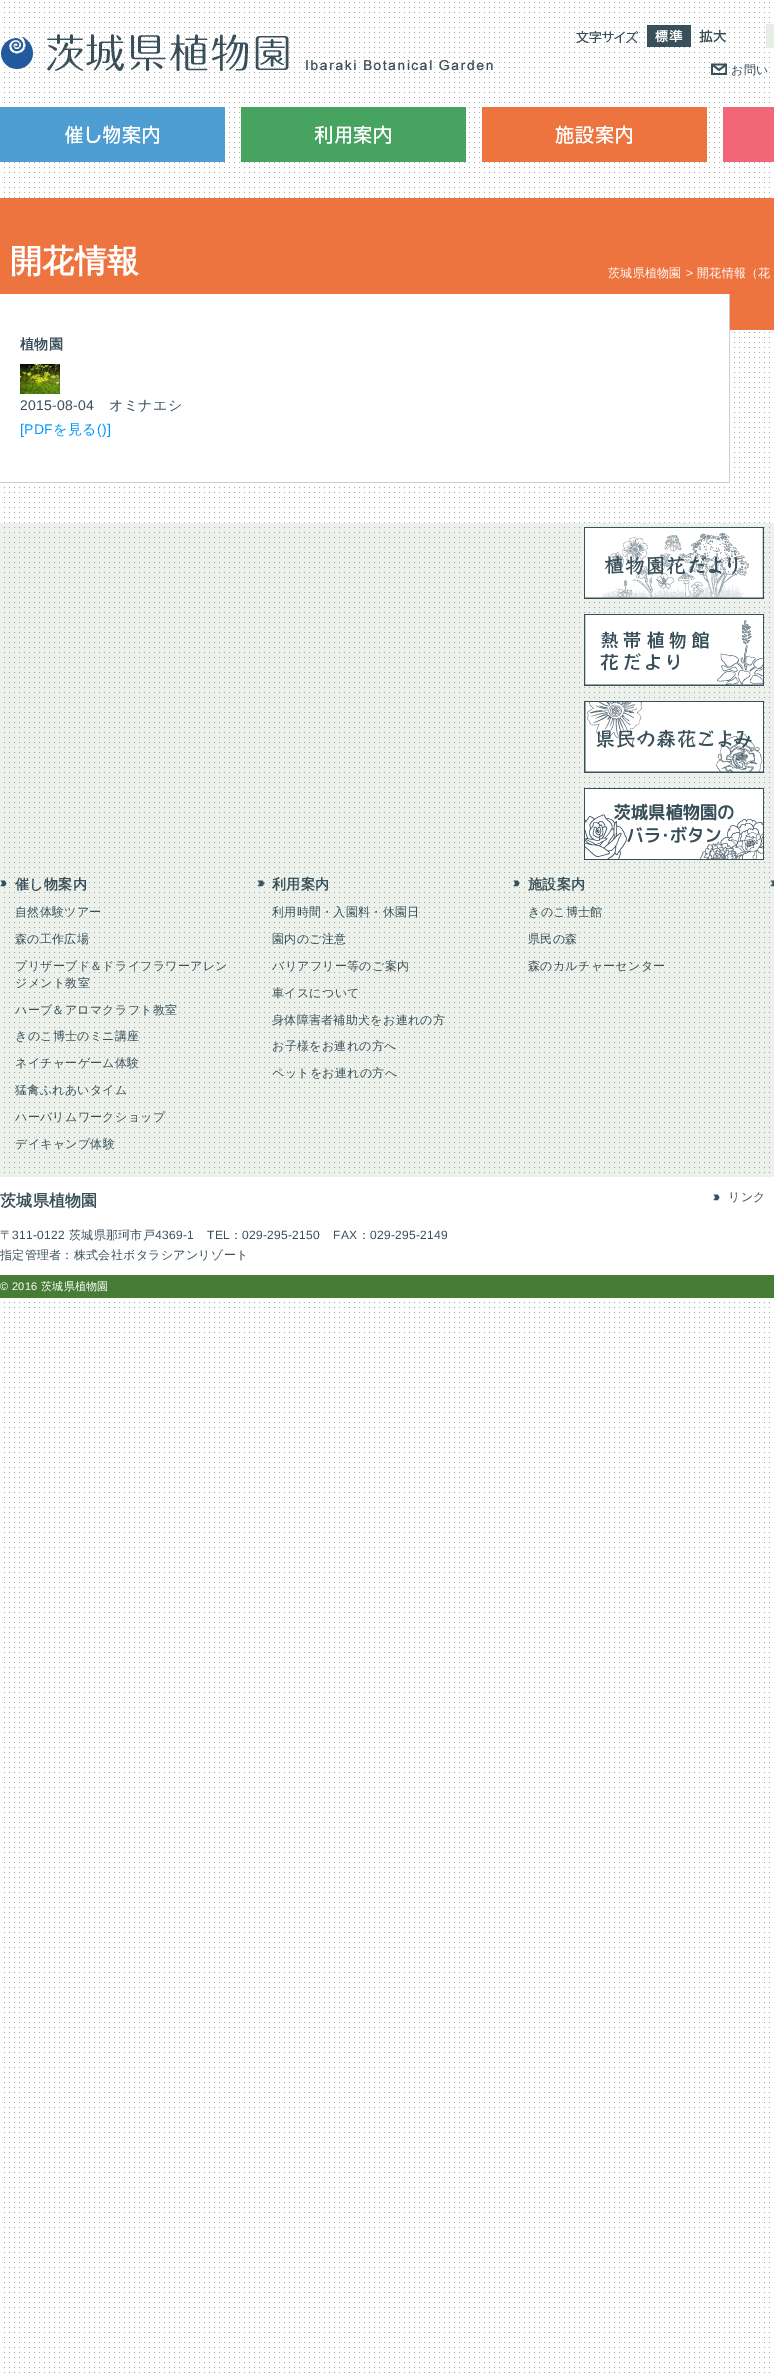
%!PS
<< /PageSize [774 2377] /PageUsesTransparency true >> setpagedevice
/rgb { 3 { 255 div 3 1 roll } repeat setrgbcolor } def
/font { [ exch dup neg 0 0 3 -1 roll 0 0 ] selectfont } def
/alpha { dup .setfillconstantalpha .setstrokeconstantalpha } def
/picture { 5 dict begin { /h /w /y /x /name } { exch def } forall
  gsave x y translate w h scale
  w h 8 [w 0 0 h 0 0] name (r) file false 3 colorimage grestore end } def
0 .pushpdf14devicefilter
0 2377 translate 1 -1 scale
4 setmiterlimit
255 255 255 rgb
0 0 774 2377 rectfill
(img_01.rgb) 4 2 766 2371 picture
(img_02.rgb) 1 34 492 37 picture
(img_03.rgb) 576 31 63 12 picture
(img_04.rgb) 647 25 44 22 picture
(img_05.rgb) 699 29 27 14 picture
231 238 229 rgb
766 24 8 24 rectfill
(img_06.rgb) 711 63 16 12 picture
(img_07.rgb) 0 107 225 55 picture
(img_08.rgb) 241 107 225 55 picture
(img_09.rgb) 482 107 225 55 picture
241 103 119 rgb
723 107 51 55 rectfill
237 116 63 rgb
0 198 774 132 rectfill
255 255 255 rgb
0 294 729 184 rectfill
204 204 204 rgb
729 294 1 189 rectfill
0 482 730 1 rectfill
(img_10.rgb) 20 364 40 30 picture
0.1 alpha
71 124 54 rgb
0 523 774 654 rectfill
1 alpha
(img_11.rgb) 584 527 180 72 picture
(img_12.rgb) 584 614 180 72 picture
(img_13.rgb) 584 701 180 72 picture
(img_14.rgb) 584 788 180 72 picture
(img_15.rgb) 0 880 7 7 picture
(img_16.rgb) 257 880 8 7 picture
(img_17.rgb) 513 880 7 7 picture
(img_18.rgb) 770 880 4 7 picture
255 255 255 rgb
4 1177 766 96 rectfill
(img_19.rgb) 713 1194 7 7 picture
71 124 54 rgb
0 1275 774 23 rectfill
/WenQuanYiZenHei-Medium 12 font
57 79 90 rgb
731 74 moveto 0.3 0 (お問い) ashow
/WenQuanYiZenHei-Bold 32 font
255 255 255 rgb
10 272 moveto 0.3 0 (開花情報) ashow
/WenQuanYiZenHei-Medium 12 font
608 277 moveto 0.3 0 (茨城県植物園) ashow
/LiberationSans-Regular 12 font
686 277 moveto 0.3 0 (>) ashow
/WenQuanYiZenHei-Medium 12 font
697 277 moveto 0.3 0 (開花情報（花) ashow
/WenQuanYiZenHei-Bold 14 font
57 79 90 rgb
20 349 moveto 0.3 0 (植物園) ashow
/LiberationSans-Regular 14 font
20 410 moveto 0.3 0 (2015-08-04) ashow
/WenQuanYiZenHei-Medium 14 font
109 410 moveto 0.3 0 (オミナエシ) ashow
/LiberationSans-Regular 14 font
0 153 255 rgb
20 434 moveto 0.3 0 ([PDF) ashow
/WenQuanYiZenHei-Medium 14 font
53 434 moveto 0.3 0 (を見る) ashow
/LiberationSans-Regular 14 font
97 434 moveto 0.3 0 (\(\)]) ashow
/WenQuanYiZenHei-Bold 14 font
57 79 90 rgb
15 889 moveto 0.3 0 (催し物案内) ashow
/WenQuanYiZenHei-Medium 12 font
15 916 moveto 0.3 0 (自然体験ツアー) ashow
15 943 moveto 0.3 0 (森の工作広場) ashow
15 970 moveto 0.3 0 (プリザーブド＆ドライフラワーアレン) ashow
15 987 moveto 0.3 0 (ジメント教室) ashow
15 1014 moveto 0.3 0 (ハーブ＆アロマクラフト教室) ashow
15 1040 moveto 0.3 0 (きのこ博士のミニ講座) ashow
15 1067 moveto 0.3 0 (ネイチャーゲーム体験) ashow
15 1094 moveto 0.3 0 (猛禽ふれあいタイム) ashow
15 1121 moveto 0.3 0 (ハーバリムワークショップ) ashow
15 1148 moveto 0.3 0 (デイキャンプ体験) ashow
/WenQuanYiZenHei-Bold 14 font
272 889 moveto 0.3 0 (利用案内) ashow
/WenQuanYiZenHei-Medium 12 font
272 916 moveto 0.3 0 (利用時間・入園料・休園日) ashow
272 943 moveto 0.3 0 (園内のご注意) ashow
272 970 moveto 0.3 0 (バリアフリー等のご案内) ashow
272 997 moveto 0.3 0 (車イスについて) ashow
272 1024 moveto 0.3 0 (身体障害者補助犬をお連れの方) ashow
272 1050 moveto 0.3 0 (お子様をお連れの方へ) ashow
272 1077 moveto 0.3 0 (ペットをお連れの方へ) ashow
/WenQuanYiZenHei-Bold 14 font
528 889 moveto 0.3 0 (施設案内) ashow
/WenQuanYiZenHei-Medium 12 font
528 916 moveto 0.3 0 (きのこ博士館) ashow
528 943 moveto 0.3 0 (県民の森) ashow
528 970 moveto 0.3 0 (森のカルチャーセンター) ashow
/WenQuanYiZenHei-Bold 16 font
0 1206 moveto 0.3 0 (茨城県植物園) ashow
/WenQuanYiZenHei-Medium 12 font
0 1239 moveto 0.3 0 (〒) ashow
/LiberationSans-Regular 12 font
12 1239 moveto 0.3 0 (311-0122) ashow
/WenQuanYiZenHei-Medium 12 font
69 1239 moveto 0.3 0 (茨城県那珂市戸) ashow
/LiberationSans-Regular 12 font
155 1239 moveto 0.3 0 (4369-1) ashow
207 1239 moveto 0.3 0 (TEL) ashow
/WenQuanYiZenHei-Medium 12 font
230 1239 moveto 0.3 0 (：) ashow
/LiberationSans-Regular 12 font
242 1239 moveto 0.3 0 (029-295-2150) ashow
333 1239 moveto 0.3 0 (FAX) ashow
/WenQuanYiZenHei-Medium 12 font
358 1239 moveto 0.3 0 (：) ashow
/LiberationSans-Regular 12 font
370 1239 moveto 0.3 0 (029-295-2149) ashow
/WenQuanYiZenHei-Medium 12 font
0 1259 moveto 0.3 0 (指定管理者：株式会社ボタラシアンリゾート) ashow
728 1201 moveto 0.3 0 (リンク) ashow
/LiberationSans-Regular 11 font
255 255 255 rgb
0 1290 moveto 0.3 0 (© 2016) ashow
/WenQuanYiZenHei-Medium 11 font
41 1290 moveto 0.3 0 (茨城県植物園) ashow
.poppdf14devicefilter showpage
